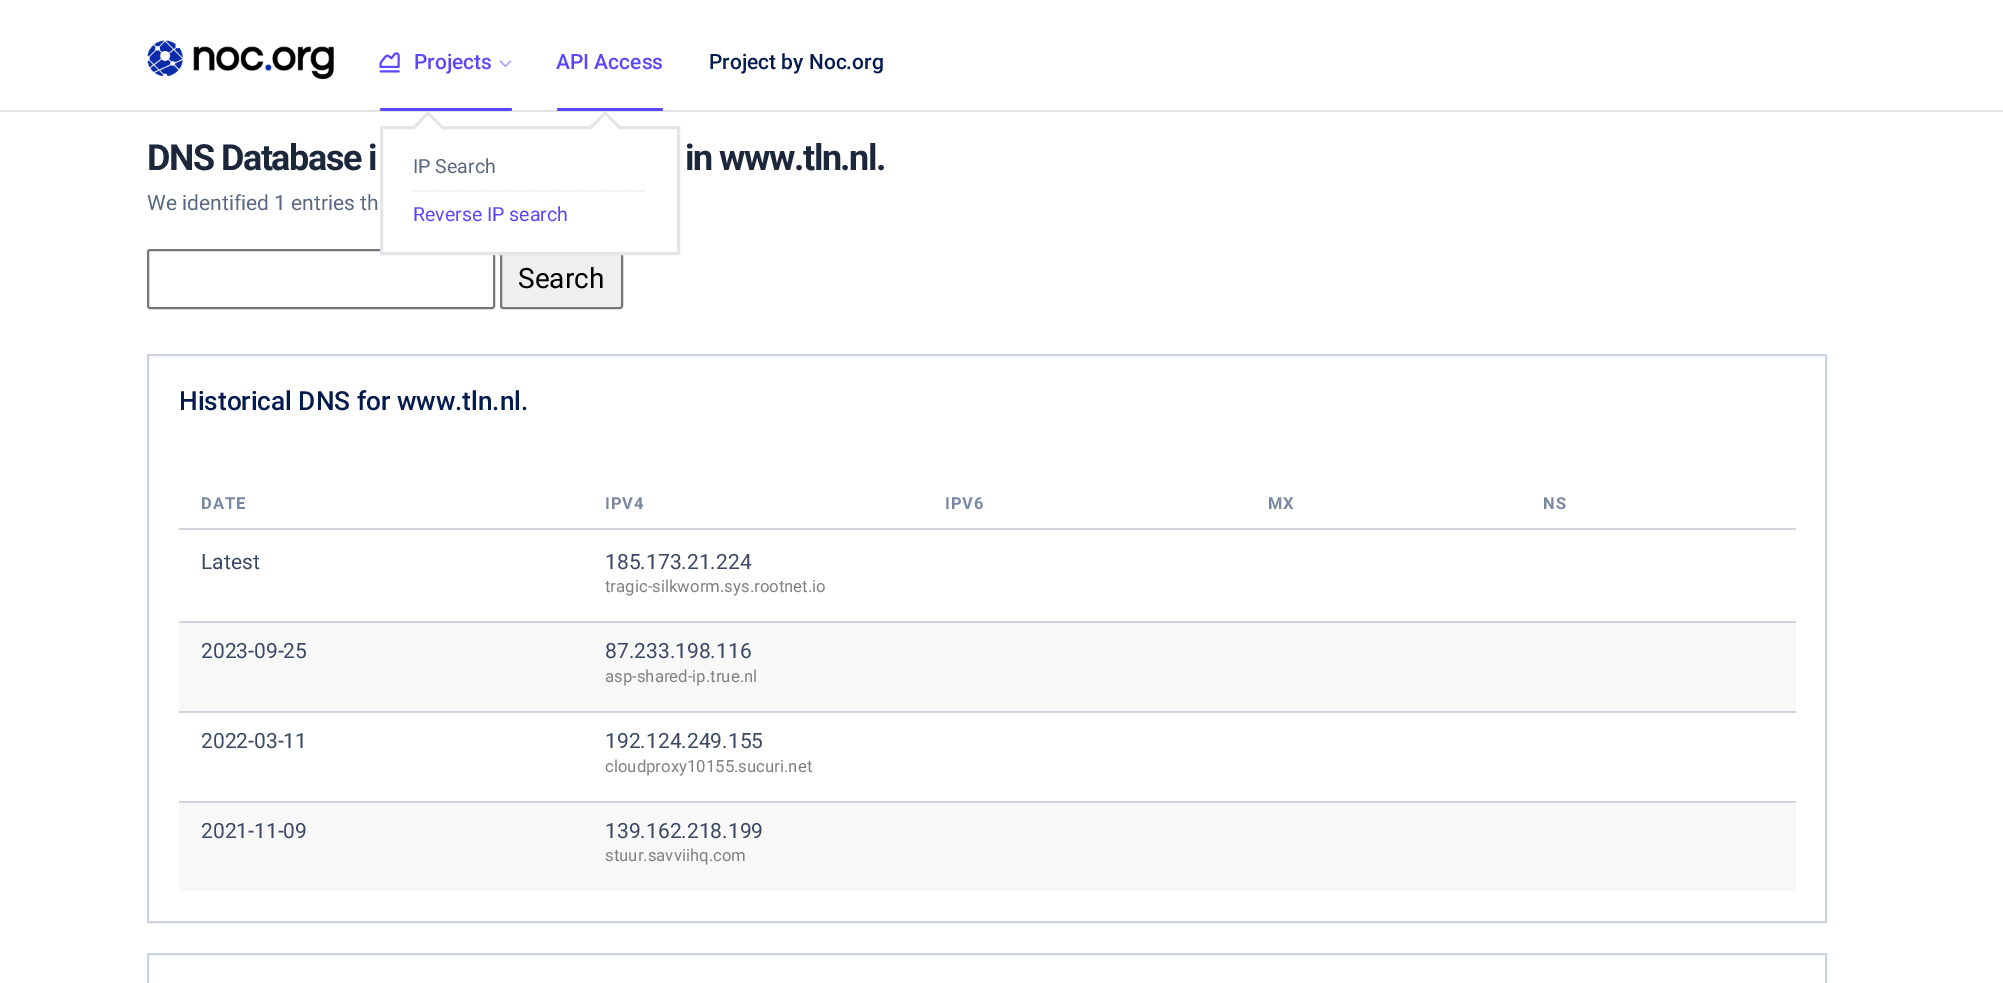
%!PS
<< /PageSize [2003 983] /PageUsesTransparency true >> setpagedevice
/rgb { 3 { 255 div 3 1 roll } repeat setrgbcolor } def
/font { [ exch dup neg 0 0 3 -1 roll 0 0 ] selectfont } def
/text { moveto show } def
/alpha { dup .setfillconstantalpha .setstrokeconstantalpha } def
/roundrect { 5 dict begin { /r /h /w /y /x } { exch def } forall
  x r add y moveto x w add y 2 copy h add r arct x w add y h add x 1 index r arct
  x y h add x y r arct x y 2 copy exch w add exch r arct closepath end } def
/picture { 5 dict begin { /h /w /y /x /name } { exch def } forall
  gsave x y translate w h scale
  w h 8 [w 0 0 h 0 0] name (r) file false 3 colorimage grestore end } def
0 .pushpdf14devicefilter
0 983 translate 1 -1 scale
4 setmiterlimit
255 255 255 rgb
0 0 2003 983 rectfill
0.12 alpha
28 39 60 rgb
0 110 2003 2 rectfill
1 alpha
(img_01.rgb) 147 40 187 40 picture
(img_02.rgb) 379 52 21 21 picture
(img_03.rgb) 499 60 13 8 picture
91 71 251 rgb
380 108 132 3 1.5 roundrect fill
118 118 118 rgb
2 setlinewidth
148 250 346 58 2 roundrect stroke
239 239 239 rgb
501 250 121 58 2 roundrect gsave fill grestore
118 118 118 rgb
stroke
255 255 255 rgb
383 249 240 3 rectfill
228 229 232 rgb
3 setlinewidth
381.5 127.5 297 126 rectstroke
255 255 255 rgb
428 111 moveto 16 16 rlineto -16 15.5 rlineto -15.5 -15.5 rlineto closepath fill
0.12 alpha
28 39 60 rgb
428 111 moveto 16 16 rlineto -2 2 rlineto -14 -14 rlineto closepath 412.5 127 moveto 15.5 -16 rlineto 0 4 rlineto -13.5 14 rlineto closepath fill
1 alpha
227 231 237 rgb
1.5 setlinewidth
[1.5 1.5] 0 setdash
412.5 191 moveto 234 0 rlineto stroke
91 71 251 rgb
557 108 106 3 1.5 roundrect fill
255 255 255 rgb
605 111 moveto 16 16 rlineto -16 15.5 rlineto -16 -15.5 rlineto closepath fill
0.12 alpha
28 39 60 rgb
605 111 moveto 16 16 rlineto -2 2 rlineto -14 -14 rlineto closepath 589 127 moveto 16 -16 rlineto 0 4 rlineto -13.5 14 rlineto closepath fill
1 alpha
205 212 224 rgb
2 setlinewidth
[] 0 setdash
148 355 1678 567 rectstroke
179 528 1617 2 rectfill
248 248 248 rgb
179 623 1617 88 rectfill
205 212 224 rgb
179 621 1617 2 rectfill
179 711 1617 2 rectfill
248 248 248 rgb
179 803 1617 88 rectfill
205 212 224 rgb
179 801 1617 2 rectfill
148 954 1678 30 rectstroke
/Roboto-Medium 21 font
91 71 251 rgb
(Projects) 414 69 text
/Roboto-Regular 19.5 font
89 104 130 rgb
(IP Search) 413 173 text
91 71 251 rgb
(Reverse IP search) 413 221 text
/Roboto-Medium 21 font
(API Access) 556 69 text
3 27 78 rgb
(Project by Noc.org) 709 69 text
/Roboto-Bold 36 font
28 39 60 rgb
147 170 moveto -1.5 0 (DNS Database i) ashow
685 170 moveto -1.5 0 (in www.tln.nl.) ashow
/Roboto-Regular 21 font
89 104 130 rgb
(We identified 1 entries th) 147 210 text
/Roboto-Regular 28 font
0 0 0 rgb
(Search) 518 288 text
/Roboto-Medium 26.25 font
3 27 78 rgb
(Historical DNS for www.tln.nl.) 179 410 text
/Roboto-Bold 16.5 font
121 135 161 rgb
201 509 moveto 1 0 (DATE) ashow
605 509 moveto 1 0 (IPV4) ashow
945 509 moveto 1 0 (IPV6) ashow
1268 509 moveto 1 0 (MX) ashow
1543 509 moveto 1 0 (NS) ashow
/Roboto-Regular 21 font
59 72 99 rgb
(Latest) 201 569 text
(185.173.21.224) 605 569 text
/Roboto-Regular 16.75 font
128 128 128 rgb
(tragic-silkworm.sys.rootnet.io) 605 592 text
/Roboto-Regular 21 font
59 72 99 rgb
(2023-09-25) 201 658 text
(87.233.198.116) 605 658 text
/Roboto-Regular 16.75 font
128 128 128 rgb
(asp-shared-ip.true.nl) 605 682 text
/Roboto-Regular 21 font
59 72 99 rgb
(2022-03-11) 201 748 text
(192.124.249.155) 605 748 text
/Roboto-Regular 16.75 font
128 128 128 rgb
(cloudproxy10155.sucuri.net) 605 772 text
/Roboto-Regular 21 font
59 72 99 rgb
(2021-11-09) 201 838 text
(139.162.218.199) 605 838 text
/Roboto-Regular 16.75 font
128 128 128 rgb
(stuur.savviihq.com) 605 861 text
.poppdf14devicefilter showpage
